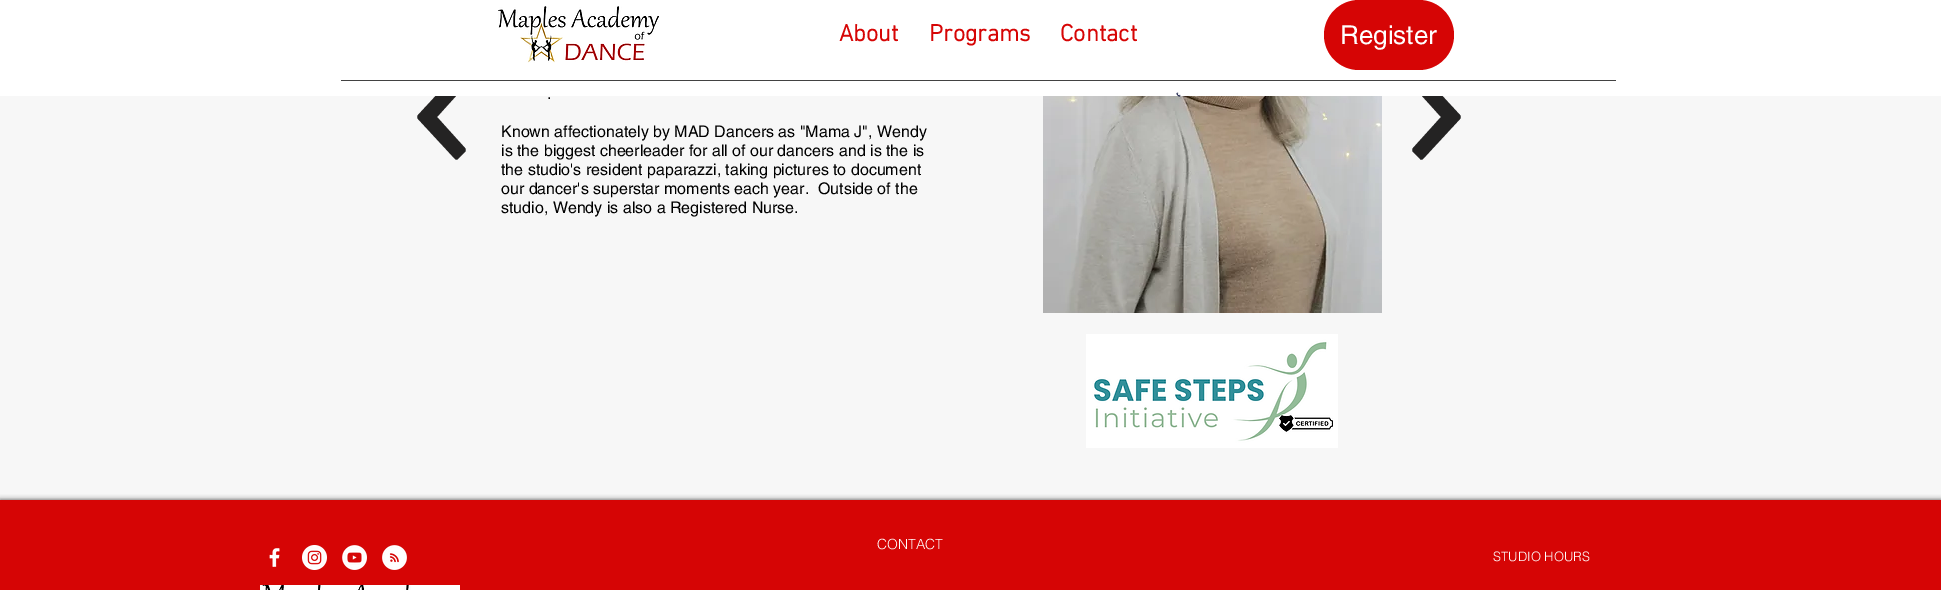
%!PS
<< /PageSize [1941 590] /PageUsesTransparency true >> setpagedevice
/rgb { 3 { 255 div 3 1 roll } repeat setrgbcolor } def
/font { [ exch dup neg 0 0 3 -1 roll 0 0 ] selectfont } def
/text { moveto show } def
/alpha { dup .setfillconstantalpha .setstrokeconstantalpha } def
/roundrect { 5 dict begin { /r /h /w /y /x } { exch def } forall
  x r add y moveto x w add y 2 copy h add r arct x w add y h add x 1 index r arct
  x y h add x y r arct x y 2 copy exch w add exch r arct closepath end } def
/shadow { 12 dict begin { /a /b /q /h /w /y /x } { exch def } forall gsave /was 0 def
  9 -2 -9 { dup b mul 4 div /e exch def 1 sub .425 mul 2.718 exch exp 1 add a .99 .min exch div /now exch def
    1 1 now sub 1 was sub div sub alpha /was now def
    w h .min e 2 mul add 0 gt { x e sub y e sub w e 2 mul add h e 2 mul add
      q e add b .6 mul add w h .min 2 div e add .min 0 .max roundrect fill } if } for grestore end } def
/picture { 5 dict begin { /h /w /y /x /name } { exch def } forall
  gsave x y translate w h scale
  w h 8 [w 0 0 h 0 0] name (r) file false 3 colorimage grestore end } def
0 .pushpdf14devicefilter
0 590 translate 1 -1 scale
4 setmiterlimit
247 247 247 rgb
0 0 1941 590 rectfill
36 35 35 rgb
418 119 moveto 37 40 rlineto 1 1 2 1 3 0 rcurveto 7 -7 rlineto 1 -1 1 -3 0 -4 rcurveto -28 -31 rlineto 28 -31 rlineto 1 -1 1 -3 0 -4 rcurveto -7 -7 rlineto 0 -1 -2 -1 -3 0 rcurveto -37 40 rlineto -1 1 -1 3 0 4 rcurveto closepath fill
1460 115 moveto -37 -40 rlineto -1 -1 -2 -1 -3 0 rcurveto -7 7 rlineto -1 1 -1 3 0 4 rcurveto 28 31 rlineto -28 31 rlineto -1 1 -1 3 0 4 rcurveto 7 7 rlineto 0 1 2 1 3 0 rcurveto 37 -40 rlineto 1 -1 1 -3 0 -4 rcurveto closepath fill
255 255 255 rgb
0 0 1941 96 rectfill
(img_01.rgb) 498 6 161 57 picture
214 5 5 rgb
1324 0 130 70 35 roundrect fill
66 66 66 rgb
341 80 1275 1 rectfill
(img_03.rgb) 1043 96 339 217 picture
(img_02.rgb) 1176 92 5 5 picture
(img_04.rgb) 1086 334 252 114 picture
0 0 0 rgb
0 500 1941 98 0 2.5 0.7 shadow
214 5 5 rgb
0 500 1941 90 rectfill
(img_05.rgb) 269 548 11 19 picture
(img_06.rgb) 302 545 25 25 picture
(img_07.rgb) 342 545 25 25 picture
(img_08.rgb) 382 545 25 25 picture
(img_09.rgb) 260 585 200 5 picture
/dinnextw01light-Bold 24 font
(About) 839 41 text
(Programs) 929 41 text
(Contact) 1060 41 text
/helvetica-Regular 26 font
255 255 255 rgb
(Register) 1340 44 text
/helvetica-Regular 16 font
0 0 0 rgb
(.) 547 99 text
(Known affectionately by MAD Dancers as "Mama J", Wendy) 501 137 text
(is the biggest cheerleader for all of our dancers and is the is) 501 156 text
(the studio's resident paparazzi, taking pictures to document) 501 175 text
(our dancer's superstar moments each year.  Outside of the) 501 194 text
(studio, Wendy is also a Registered Nurse.) 501 213 text
/helvetica-Light 14 font
255 255 255 rgb
(CONTACT) 877 549 text
/helvetica-Light 13 font
(STUDIO HOURS) 1493 561 text
.poppdf14devicefilter showpage
